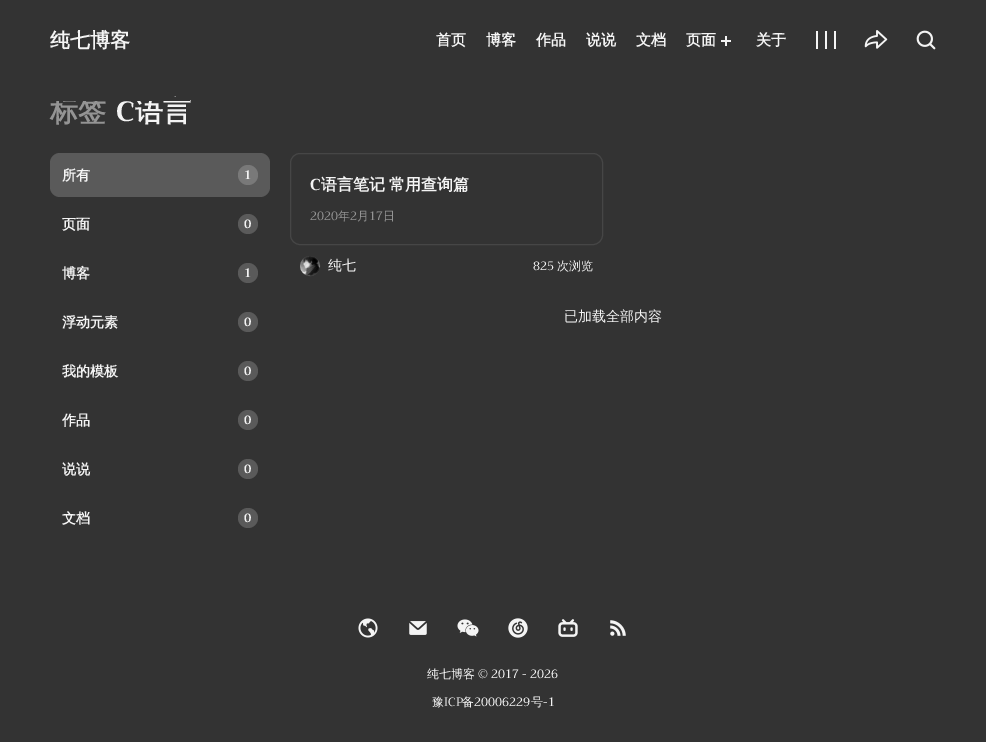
%!PS
<< /PageSize [986 742] /PageUsesTransparency true >> setpagedevice
/rgb { 3 { 255 div 3 1 roll } repeat setrgbcolor } def
/font { [ exch dup neg 0 0 3 -1 roll 0 0 ] selectfont } def
/text { moveto show } def
/alpha { dup .setfillconstantalpha .setstrokeconstantalpha } def
/circle { newpath 0 360 arc closepath } def
/roundrect { 5 dict begin { /r /h /w /y /x } { exch def } forall
  x r add y moveto x w add y 2 copy h add r arct x w add y h add x 1 index r arct
  x y h add x y r arct x y 2 copy exch w add exch r arct closepath end } def
/picture { 5 dict begin { /h /w /y /x /name } { exch def } forall
  gsave x y translate w h scale
  w h 8 [w 0 0 h 0 0] name (r) file false 3 colorimage grestore end } def
0 .pushpdf14devicefilter
0 742 translate 1 -1 scale
4 setmiterlimit
51 51 51 rgb
0 0 986 742 rectfill
244 244 244 rgb
721 40 10 2 rectfill
725 36 2 10 rectfill
816 31 2 18 rectfill
825 31 2 18 rectfill
834 31 2 18 rectfill
(img_01.rgb) 864 30 24 19 picture
(img_02.rgb) 916 30 20 20 picture
90 90 90 rgb
50 153 220 44 10 roundrect fill
121 121 121 rgb
248 175 10 circle fill
90 90 90 rgb
248 224 10 circle fill
248 273 10 circle fill
248 322 10 circle fill
248 371 10 circle fill
248 420 10 circle fill
248 469 10 circle fill
248 518 10 circle fill
70 70 70 rgb
290.5 153.5 312 91 9.5 roundrect stroke
310 266 10 circle fill
(img_03.rgb) 300 256 20 20 picture
0.1 alpha
244 244 244 rgb
310 266 9.5 circle stroke
1 alpha
(img_04.rgb) 358 618 20 20 picture
(img_05.rgb) 409 621 18 14 picture
(img_06.rgb) 457 619 22 18 picture
(img_07.rgb) 508 618 20 20 picture
(img_08.rgb) 558 619 20 18 picture
(img_09.rgb) 610 620 16 16 picture
/WenQuanYiZenHei-Bold 20 font
(纯七博客) 50 47 text
/WenQuanYiZenHei-Bold 15 font
(首页) 436 45 text
(博客) 486 45 text
(作品) 536 45 text
(说说) 586 45 text
(文档) 636 45 text
(页面) 686 45 text
(关于) 756 45 text
/WenQuanYiZenHei-Bold 28 font
148 148 148 rgb
(标签) 50 121 text
/Trirong-Bold 28 font
244 244 244 rgb
(C) 116 121 text
/WenQuanYiZenHei-Bold 28 font
(语言) 135 121 text
51 51 51 rgb
56 97 134 4 rectfill
/WenQuanYiZenHei-Bold 14 font
244 244 244 rgb
(所有) 62 180 text
/Trirong-SemiBold 12 font
(1) 244 179 text
/WenQuanYiZenHei-Bold 14 font
(页面) 62 229 text
/Trirong-SemiBold 12 font
(0) 244 228 text
/WenQuanYiZenHei-Bold 14 font
(博客) 62 278 text
/Trirong-SemiBold 12 font
(1) 244 277 text
/WenQuanYiZenHei-Bold 14 font
(浮动元素) 62 327 text
/Trirong-SemiBold 12 font
(0) 244 326 text
/WenQuanYiZenHei-Bold 14 font
(我的模板) 62 376 text
/Trirong-SemiBold 12 font
(0) 244 375 text
/WenQuanYiZenHei-Bold 14 font
(作品) 62 425 text
/Trirong-SemiBold 12 font
(0) 244 424 text
/WenQuanYiZenHei-Bold 14 font
(说说) 62 474 text
/Trirong-SemiBold 12 font
(0) 244 473 text
/WenQuanYiZenHei-Bold 14 font
(文档) 62 523 text
/Trirong-SemiBold 12 font
(0) 244 522 text
/Trirong-Bold 16 font
(C) 310 190 text
/WenQuanYiZenHei-Bold 16 font
321 190 moveto -1 0 32 (语言笔记 常用查询篇) widthshow
/Trirong-Regular 12 font
148 148 148 rgb
(2020) 310 220 text
/WenQuanYiZenHei-Medium 12 font
(年) 338 220 text
/Trirong-Regular 12 font
(2) 350 220 text
/WenQuanYiZenHei-Medium 12 font
(月) 357 220 text
/Trirong-Regular 12 font
(17) 369 220 text
/WenQuanYiZenHei-Medium 12 font
(日) 383 220 text
/WenQuanYiZenHei-Medium 14 font
244 244 244 rgb
(纯七) 328 270 text
/Trirong-Regular 12 font
(825) 533 270 text
/WenQuanYiZenHei-Medium 12 font
(次浏览) 557 270 text
/WenQuanYiZenHei-Medium 14 font
(已加载全部内容) 564 321 text
/WenQuanYiZenHei-Medium 12 font
(纯七博客) 427 678 text
/Trirong-Regular 12 font
(© 2017 - 2026) 478 678 text
/WenQuanYiZenHei-Medium 12 font
(豫) 432 706 text
/Trirong-Regular 12 font
(ICP) 444 706 text
/WenQuanYiZenHei-Medium 12 font
(备) 462 706 text
/Trirong-Regular 12 font
(20006229) 474 706 text
/WenQuanYiZenHei-Medium 12 font
(号) 531 706 text
/Trirong-Regular 12 font
(-1) 543 706 text
.poppdf14devicefilter showpage
